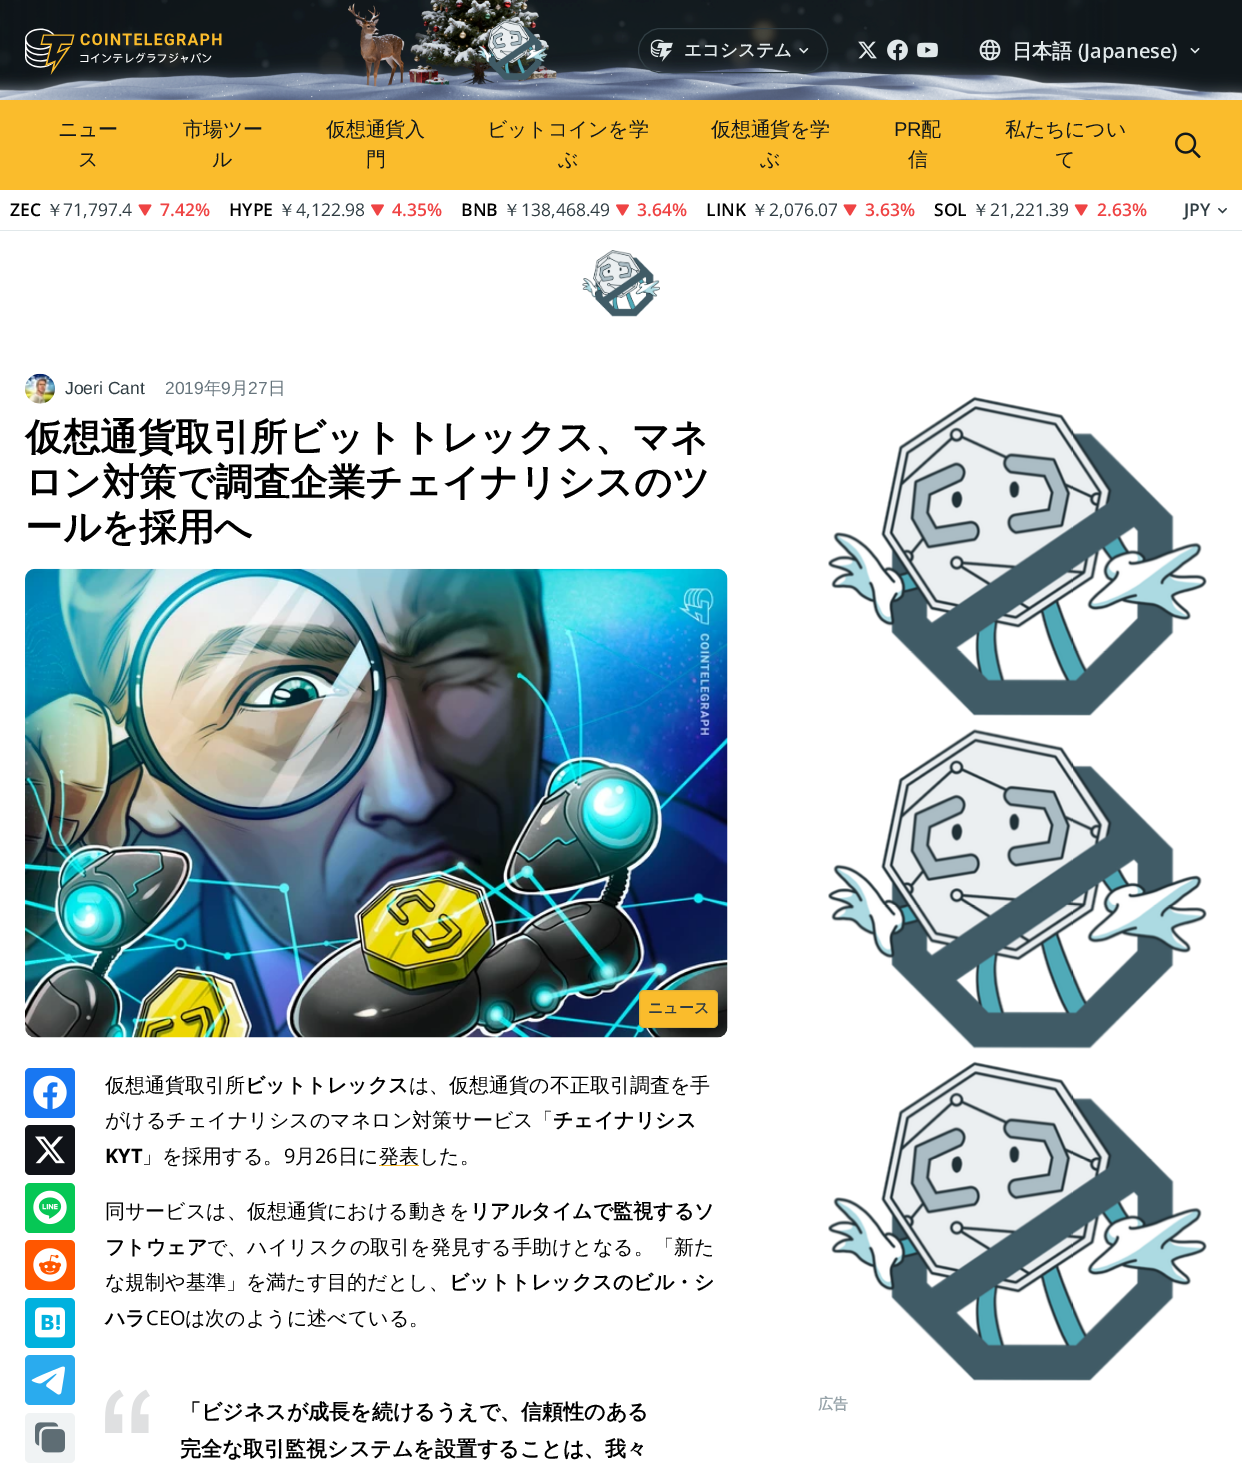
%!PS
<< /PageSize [1242 1470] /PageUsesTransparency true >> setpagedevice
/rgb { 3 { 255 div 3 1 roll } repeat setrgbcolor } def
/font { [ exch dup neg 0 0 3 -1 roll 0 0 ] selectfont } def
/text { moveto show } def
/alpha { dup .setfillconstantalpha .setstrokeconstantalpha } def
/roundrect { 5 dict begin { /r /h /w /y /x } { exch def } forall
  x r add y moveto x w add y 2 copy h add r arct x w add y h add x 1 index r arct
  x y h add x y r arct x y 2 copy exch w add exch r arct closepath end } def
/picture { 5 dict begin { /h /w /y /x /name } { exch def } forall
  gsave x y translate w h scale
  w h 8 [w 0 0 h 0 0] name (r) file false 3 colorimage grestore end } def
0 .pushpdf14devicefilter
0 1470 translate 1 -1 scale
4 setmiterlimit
255 255 255 rgb
0 0 1242 1470 rectfill
16 23 27 rgb
0 0 1242 95 rectfill
(img_01.rgb) 0 0 1242 100 picture
(img_02.rgb) 25 28 197 47 picture
(img_03.rgb) 477 20 71 60 picture
48 61 67 rgb
638.5 28.5 189 44 22 roundrect stroke
(img_04.rgb) 650 39 23 23 picture
(img_05.rgb) 799 48 10 6 picture
(img_06.rgb) 858 41 19 18 picture
(img_07.rgb) 887 39 21 22 picture
(img_08.rgb) 917 42 21 16 picture
(img_09.rgb) 979 39 22 22 picture
(img_10.rgb) 1190 48 10 6 picture
250 188 44 rgb
0 100 1242 90 rectfill
(img_11.rgb) 1175 132 26 27 picture
225 232 234 rgb
0 230 1242 1 rectfill
(img_12.rgb) 138 204 14 12 picture
(img_13.rgb) 371 204 13 12 picture
(img_13.rgb) 616 204 13 12 picture
(img_12.rgb) 843 204 14 12 picture
(img_14.rgb) 1074 204 14 12 picture
(img_15.rgb) 1218 208 9 6 picture
(img_16.rgb) 582 250 78 67 picture
(img_17.rgb) 25 373 30 31 picture
(img_18.rgb) 25 568 703 470 picture
250 188 44 rgb
639 990 79 38 5 roundrect fill
0.15 alpha
49 97 111 rgb
639.5 990.5 78 37 4.5 roundrect stroke
1 alpha
24 119 242 rgb
25 1068 50 50 5 roundrect fill
(img_19.rgb) 33 1075 34 34 picture
16 19 24 rgb
25 1125 50 50 5 roundrect fill
(img_20.rgb) 35 1136 30 28 picture
6 199 85 rgb
25 1183 50 50 5 roundrect fill
(img_21.rgb) 33 1190 34 35 picture
255 87 0 rgb
25 1240 50 50 5 roundrect fill
(img_22.rgb) 33 1248 34 34 picture
0 177 222 rgb
25 1298 50 50 5 roundrect fill
(img_23.rgb) 35 1307 30 31 picture
42 171 238 rgb
25 1355 50 50 5 roundrect fill
(img_24.rgb) 31 1366 34 29 picture
240 243 244 rgb
25 1413 50 50 5 roundrect fill
(img_25.rgb) 35 1422 30 31 picture
250 188 44 rgb
379 1165 40 1 rectfill
(img_26.rgb) 105 1389 45 44 picture
(img_27.rgb) 828 396 379 320 picture
(img_28.rgb) 828 728 379 321 picture
(img_29.rgb) 828 1061 379 320 picture
/WenQuanYiZenHei-Bold 17.5 font
225 232 234 rgb
(エコシステム) 684 56 text
/WenQuanYiZenHei-Bold 20 font
(日本語) 1012 58 text
/OpenSans-SemiBold 20 font
(\(Japanese\)) 1078 58 text
/WenQuanYiZenHei-Medium 20 font
16 23 27 rgb
58 136 moveto -0.25 0 (ニュー) ashow
78 166 moveto -0.25 0 (ス) ashow
183 136 moveto -0.25 0 (市場ツー) ashow
212 166 moveto -0.25 0 (ル) ashow
326 136 moveto -0.25 0 (仮想通貨入) ashow
366 166 moveto -0.25 0 (門) ashow
487 136 moveto -0.25 0 (ビットコインを学) ashow
558 166 moveto -0.25 0 (ぶ) ashow
711 136 moveto -0.25 0 (仮想通貨を学) ashow
760 166 moveto -0.25 0 (ぶ) ashow
/LiberationSans-Regular 20 font
894 136 moveto -0.25 0 (PR) ashow
/WenQuanYiZenHei-Medium 20 font
921 136 moveto -0.25 0 (配) ashow
908 166 moveto -0.25 0 (信) ashow
1005 136 moveto -0.25 0 (私たちについ) ashow
1055 166 moveto -0.25 0 (て) ashow
/OpenSans-SemiBold 17.5 font
0 0 0 rgb
(ZEC) 10 216 text
/WenQuanYiZenHei-Medium 17.5 font
48 61 67 rgb
(￥) 46 216 text
/OpenSans-Regular 17.5 font
(71,797.4) 63 216 text
/OpenSans-SemiBold 17.5 font
239 68 68 rgb
(7.42%) 160 216 text
0 0 0 rgb
(HYPE) 229 216 text
/WenQuanYiZenHei-Medium 17.5 font
48 61 67 rgb
(￥) 278 216 text
/OpenSans-Regular 17.5 font
(4,122.98) 296 216 text
/OpenSans-SemiBold 17.5 font
239 68 68 rgb
(4.35%) 392 216 text
0 0 0 rgb
(BNB) 461 216 text
/WenQuanYiZenHei-Medium 17.5 font
48 61 67 rgb
(￥) 503 216 text
/OpenSans-Regular 17.5 font
(138,468.49) 521 216 text
/OpenSans-SemiBold 17.5 font
239 68 68 rgb
(3.64%) 637 216 text
0 0 0 rgb
(LINK) 706 216 text
/WenQuanYiZenHei-Medium 17.5 font
48 61 67 rgb
(￥) 751 216 text
/OpenSans-Regular 17.5 font
(2,076.07) 769 216 text
/OpenSans-SemiBold 17.5 font
239 68 68 rgb
(3.63%) 865 216 text
0 0 0 rgb
(SOL) 934 216 text
/WenQuanYiZenHei-Medium 17.5 font
48 61 67 rgb
(￥) 972 216 text
/OpenSans-Regular 17.5 font
(21,221.39) 990 216 text
/OpenSans-SemiBold 17.5 font
239 68 68 rgb
(2.63%) 1097 216 text
48 61 67 rgb
(JPY) 1184 216 text
/LiberationSans-Regular 17.5 font
(Joeri Cant) 65 394 text
102 116 124 rgb
(2019) 165 394 text
/WenQuanYiZenHei-Medium 17.5 font
(年) 204 394 text
/LiberationSans-Regular 17.5 font
(9) 221 394 text
/WenQuanYiZenHei-Medium 17.5 font
(月) 231 394 text
/LiberationSans-Regular 17.5 font
(27) 248 394 text
/WenQuanYiZenHei-Medium 17.5 font
(日) 268 394 text
/WenQuanYiZenHei-Bold 37.5 font
0 0 0 rgb
(仮想通貨取引所ビットトレックス、マネ) 25 450 text
(ロン対策で調査企業チェイナリシスのツ) 25 495 text
(ールを採用へ) 25 540 text
/WenQuanYiZenHei-Bold 15 font
48 61 67 rgb
(ニュース) 648 1013 text
/WenQuanYiZenHei-Medium 20 font
0 0 0 rgb
(仮想通貨取引所) 105 1092 text
/WenQuanYiZenHei-Bold 20 font
(ビットトレックス) 245 1092 text
/WenQuanYiZenHei-Medium 20 font
(は、仮想通貨の不正取引調査を手) 409 1092 text
(がけるチェイナリシスのマネロン対策サービス「) 105 1127 text
/WenQuanYiZenHei-Bold 20 font
(チェイナリシス) 553 1127 text
/OpenSans-Bold 20 font
(KYT) 105 1163 text
/WenQuanYiZenHei-Medium 20 font
(」を採用する。) 142 1163 text
/OpenSans-Regular 20 font
(9) 284 1163 text
/WenQuanYiZenHei-Medium 20 font
(月) 295 1163 text
/OpenSans-Regular 20 font
(26) 315 1163 text
/WenQuanYiZenHei-Medium 20 font
(日に) 338 1163 text
(発表した。) 379 1163 text
(同サービスは、仮想通貨における動きを) 105 1218 text
/WenQuanYiZenHei-Bold 20 font
(リアルタイムで監視するソ) 470 1218 text
(フトウェア) 105 1254 text
/WenQuanYiZenHei-Medium 20 font
(で、ハイリスクの取引を発見する手助けとなる。「新た) 207 1254 text
(な規制や基準」を満たす目的だとし、) 105 1289 text
/WenQuanYiZenHei-Bold 20 font
(ビットトレックスのビル・シ) 449 1289 text
(ハラ) 105 1325 text
/OpenSans-Regular 20 font
(CEO) 146 1325 text
/WenQuanYiZenHei-Medium 20 font
(は次のように述べている。) 185 1325 text
/WenQuanYiZenHei-Bold 21 font
(「ビジネスが成長を続けるうえで、信頼性のある) 180 1419 text
(完全な取引監視システムを設置することは、我々) 180 1456 text
/WenQuanYiZenHei-Bold 15 font
152 164 170 rgb
(広告) 818 1409 text
.poppdf14devicefilter showpage
